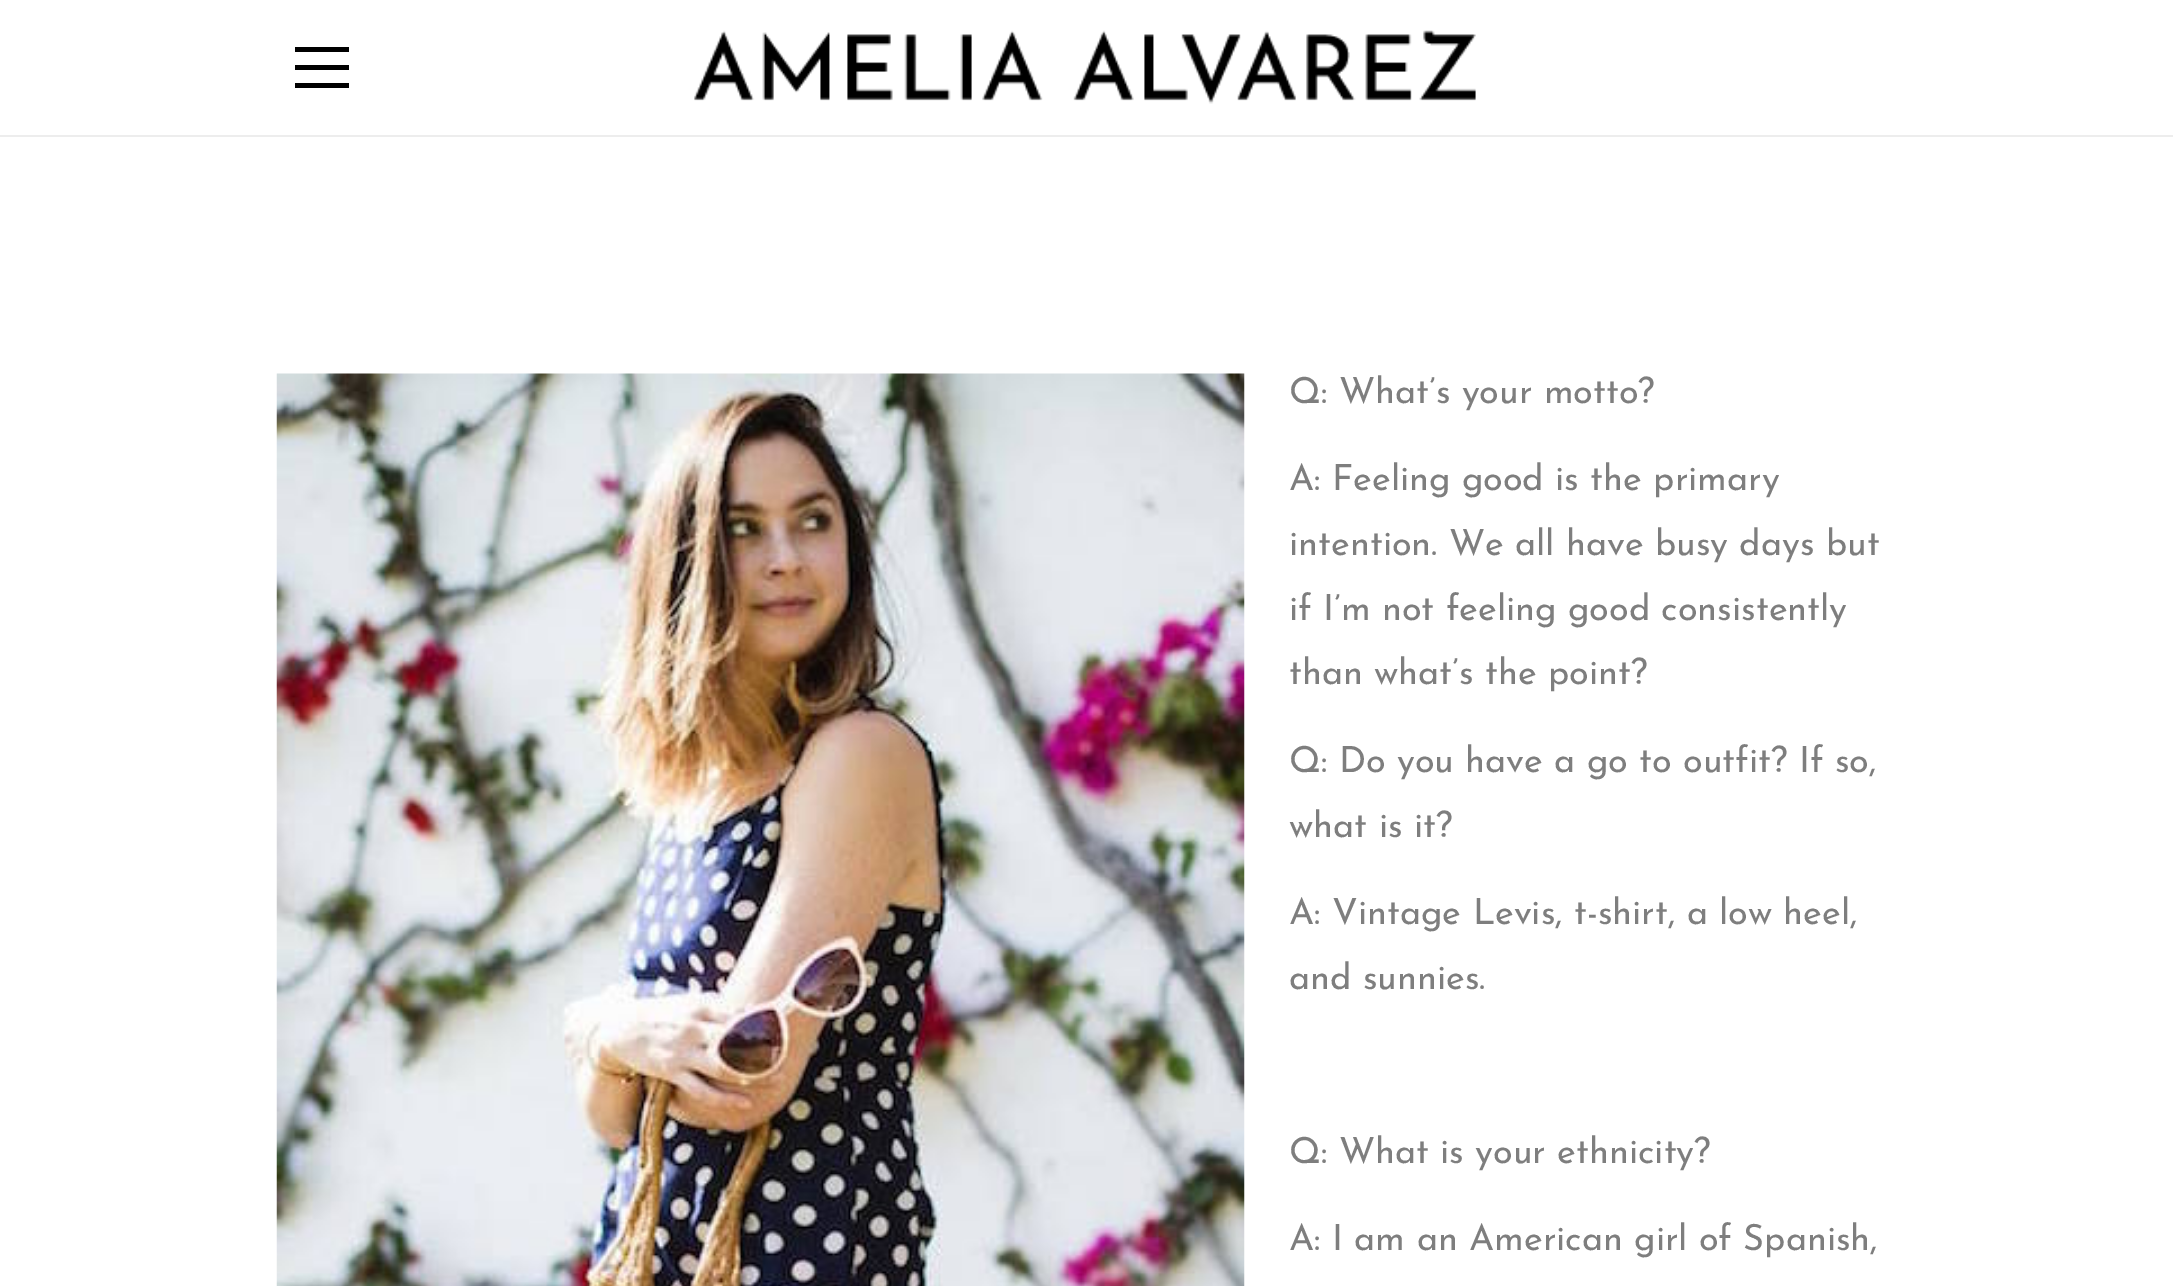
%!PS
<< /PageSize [2173 1286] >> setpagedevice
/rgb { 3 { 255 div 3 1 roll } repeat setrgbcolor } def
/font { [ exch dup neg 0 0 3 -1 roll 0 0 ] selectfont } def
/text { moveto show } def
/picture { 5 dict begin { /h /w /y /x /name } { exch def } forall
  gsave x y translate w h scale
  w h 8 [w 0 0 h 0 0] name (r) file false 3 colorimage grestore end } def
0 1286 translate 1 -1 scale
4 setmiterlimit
255 255 255 rgb
0 0 2173 1286 rectfill
237 237 237 rgb
0 135 2173 2 rectfill
0 0 0 rgb
295 47 54 5 rectfill
295 65 54 5 rectfill
295 83 54 5 rectfill
(img_01.rgb) 694 30 782 74 picture
(img_02.rgb) 276 373 969 913 picture
/JosefinSans-Regular 36 font
126 126 126 rgb
(Q: What’s your motto?) 1289 403 text
(A: Feeling good is the primary) 1289 490 text
(intention. We all have busy days but) 1289 555 text
(if I’m not feeling good consistently) 1289 620 text
(than what’s the point?) 1289 684 text
(Q: Do you have a go to outfit? If so,) 1289 772 text
(what is it?) 1289 837 text
(A: Vintage Levis, t-shirt, a low heel,) 1289 924 text
(and sunnies.) 1289 989 text
(Q: What is your ethnicity?) 1289 1163 text
(A: I am an American girl of Spanish,) 1289 1250 text
showpage
